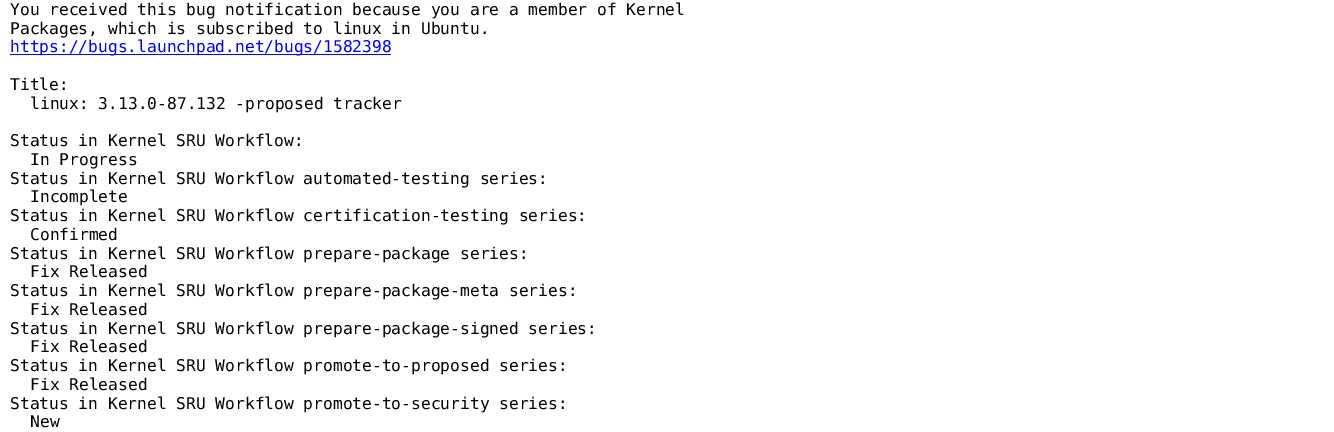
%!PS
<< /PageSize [1334 432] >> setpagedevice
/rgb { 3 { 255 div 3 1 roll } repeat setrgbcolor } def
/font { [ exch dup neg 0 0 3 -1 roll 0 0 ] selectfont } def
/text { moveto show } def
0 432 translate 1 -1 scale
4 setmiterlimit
255 255 255 rgb
0 0 1334 432 rectfill
0 0 238 rgb
10 54 381 1 rectfill
/DejaVuSansMono-Regular 16.25 font
0 0 0 rgb
(You received this bug notification because you are a member of Kernel) 10 15 text
(Packages, which is subscribed to linux in Ubuntu.) 10 34 text
0 0 238 rgb
(https://bugs.launchpad.net/bugs/1582398) 10 52 text
0 0 0 rgb
(Title:) 10 90 text
(linux: 3.13.0-87.132 -proposed tracker) 30 109 text
(Status in Kernel SRU Workflow:) 10 146 text
(In Progress) 30 165 text
(Status in Kernel SRU Workflow automated-testing series:) 10 184 text
(Incomplete) 30 202 text
(Status in Kernel SRU Workflow certification-testing series:) 10 221 text
(Confirmed) 30 240 text
(Status in Kernel SRU Workflow prepare-package series:) 10 259 text
(Fix Released) 30 277 text
(Status in Kernel SRU Workflow prepare-package-meta series:) 10 296 text
(Fix Released) 30 315 text
(Status in Kernel SRU Workflow prepare-package-signed series:) 10 334 text
(Fix Released) 30 352 text
(Status in Kernel SRU Workflow promote-to-proposed series:) 10 371 text
(Fix Released) 30 390 text
(Status in Kernel SRU Workflow promote-to-security series:) 10 409 text
(New) 30 427 text
showpage
